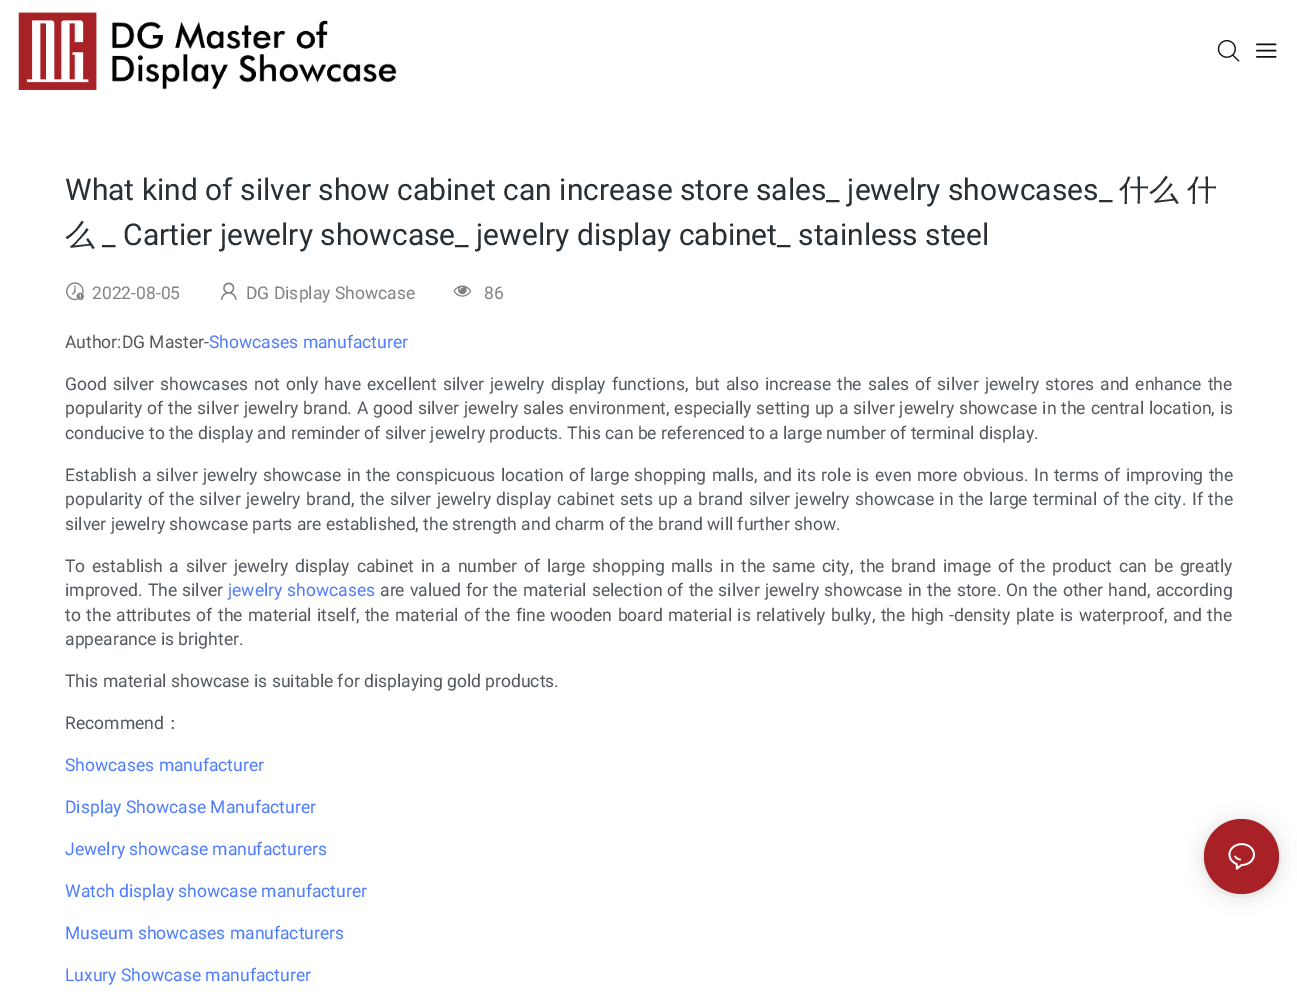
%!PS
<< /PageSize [1297 992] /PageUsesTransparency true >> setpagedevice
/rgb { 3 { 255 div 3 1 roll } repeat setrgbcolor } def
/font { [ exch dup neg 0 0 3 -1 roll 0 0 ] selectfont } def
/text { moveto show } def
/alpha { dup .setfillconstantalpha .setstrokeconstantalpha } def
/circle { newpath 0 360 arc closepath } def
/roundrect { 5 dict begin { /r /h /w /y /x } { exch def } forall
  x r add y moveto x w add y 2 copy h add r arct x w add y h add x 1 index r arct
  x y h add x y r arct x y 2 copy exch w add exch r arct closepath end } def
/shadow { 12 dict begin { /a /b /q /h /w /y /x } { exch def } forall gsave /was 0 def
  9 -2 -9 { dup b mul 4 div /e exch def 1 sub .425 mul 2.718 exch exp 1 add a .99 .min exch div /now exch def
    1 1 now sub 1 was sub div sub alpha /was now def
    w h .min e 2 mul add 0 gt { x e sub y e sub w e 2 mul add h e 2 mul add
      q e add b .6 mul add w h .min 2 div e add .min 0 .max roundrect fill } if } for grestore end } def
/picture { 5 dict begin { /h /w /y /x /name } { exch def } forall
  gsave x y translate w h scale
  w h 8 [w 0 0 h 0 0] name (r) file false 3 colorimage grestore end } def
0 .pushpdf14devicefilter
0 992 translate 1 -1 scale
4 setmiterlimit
255 255 255 rgb
0 0 1297 992 rectfill
(img_01.rgb) 18 12 379 78 picture
(img_02.rgb) 1217 40 23 22 picture
(img_03.rgb) 1256 43 21 15 picture
(img_04.rgb) 66 282 18 19 picture
(img_05.rgb) 220 282 17 18 picture
(img_06.rgb) 453 285 18 12 picture
0 0 0 rgb
1204 821 75 75 37.5 10 0.12 shadow
1204 820 75 75 37.5 2.5 0.06 shadow
167 33 38 rgb
1241.5 856.5 37.5 circle fill
(img_07.rgb) 1228 843 27 27 picture
/Roboto-Regular 30 font
40 48 54 rgb
(What kind of silver show cabinet can increase store sales_ jewelry showcases_) 65 200 text
/WenQuanYiZenHei-Medium 30 font
(什么) 1119 200 text
(什) 1187 200 text
(么) 65 245 text
/Roboto-Regular 30 font
(_ Cartier jewelry showcase_ jewelry display cabinet_ stainless steel) 102 245 text
/Roboto-Regular 17.5 font
126 131 134 rgb
(2022-08-05) 92 299 text
(DG Display Showcase) 246 299 text
(86) 484 299 text
83 89 94 rgb
(Author:DG Master-) 65 348 text
77 124 254 rgb
(Showcases manufacturer) 209 348 text
83 89 94 rgb
65 390 moveto 1.8 0 32 (Good silver showcases not only have excellent silver jewelry display functions, but also increase the sales of silver jewelry stores and enhance the) widthshow
65 414 moveto 0.5 0 32 (popularity of the silver jewelry brand. A good silver jewelry sales environment, especially setting up a silver jewelry showcase in the central location, is) widthshow
(conducive to the display and reminder of silver jewelry products. This can be referenced to a large number of terminal display.) 65 439 text
65 481 moveto 1 0 32 (Establish a silver jewelry showcase in the conspicuous location of large shopping malls, and its role is even more obvious. In terms of improving the) widthshow
65 505 moveto 1.15 0 32 (popularity of the silver jewelry brand, the silver jewelry display cabinet sets up a brand silver jewelry showcase in the large terminal of the city. If the) widthshow
(silver jewelry showcase parts are established, the strength and charm of the brand will further show.) 65 530 text
65 572 moveto 2.4 0 32 (To establish a silver jewelry display cabinet in a number of large shopping malls in the same city, the brand image of the product can be greatly) widthshow
65 596 moveto 0.75 0 32 (improved. The silver) widthshow
77 124 254 rgb
228 596 moveto 0.75 0 32 (jewelry showcases) widthshow
83 89 94 rgb
380 596 moveto 0.75 0 32 (are valued for the material selection of the silver jewelry showcase in the store. On the other hand, according) widthshow
65 621 moveto 1.1 0 32 (to the attributes of the material itself, the material of the fine wooden board material is relatively bulky, the high -density plate is waterproof, and the) widthshow
(appearance is brighter.) 65 645 text
(This material showcase is suitable for displaying gold products.) 65 687 text
(Recommend) 65 729 text
/WenQuanYiZenHei-Medium 17.5 font
(：) 164 729 text
/Roboto-Regular 17.5 font
77 124 254 rgb
(Showcases manufacturer) 65 771 text
(Display Showcase Manufacturer) 65 813 text
(Jewelry showcase manufacturers) 65 855 text
(Watch display showcase manufacturer) 65 897 text
(Museum showcases manufacturers) 65 939 text
(Luxury Showcase manufacturer) 65 981 text
.poppdf14devicefilter showpage
